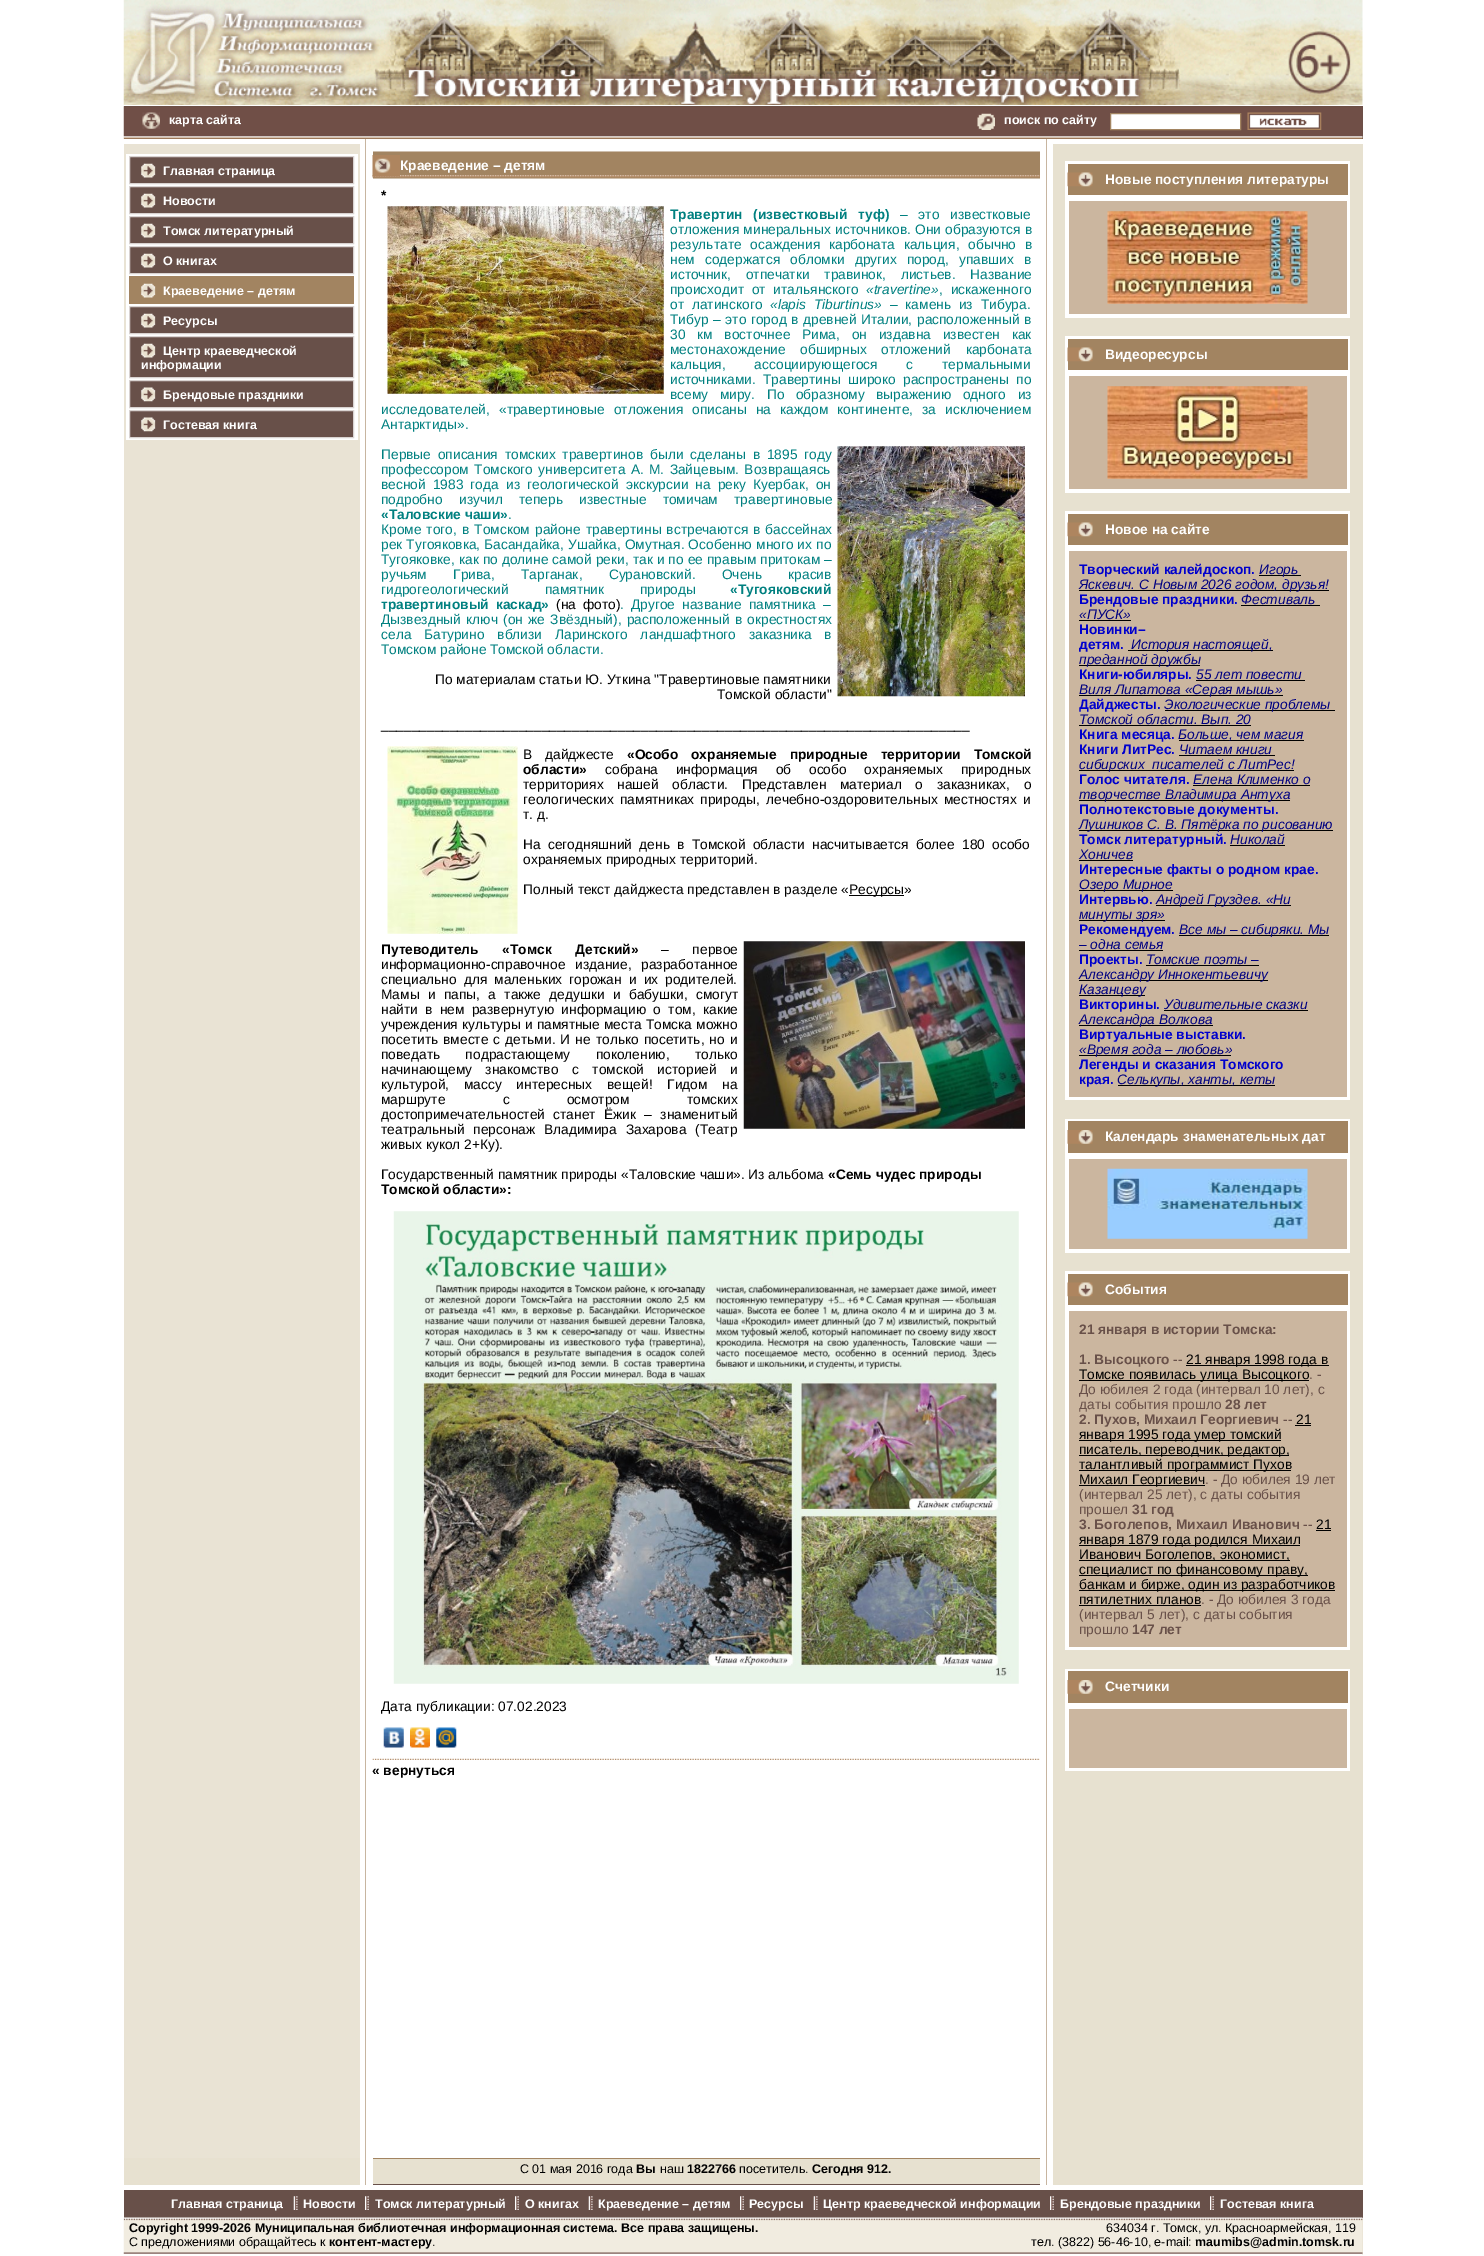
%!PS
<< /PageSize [1484 2256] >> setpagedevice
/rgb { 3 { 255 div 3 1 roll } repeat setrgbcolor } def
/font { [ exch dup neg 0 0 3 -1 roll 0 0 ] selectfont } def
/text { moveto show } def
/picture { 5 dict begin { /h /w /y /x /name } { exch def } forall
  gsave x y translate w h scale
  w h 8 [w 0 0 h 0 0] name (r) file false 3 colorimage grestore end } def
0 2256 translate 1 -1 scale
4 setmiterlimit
255 255 255 rgb
0 0 1484 2256 rectfill
(img_01.rgb) 123 0 1240 105 picture
104 80 73 rgb
124 106 1239 33 rectfill
(img_02.rgb) 123 106 1240 33 picture
(img_03.rgb) 142 112 18 17 picture
(img_04.rgb) 977 113 18 17 picture
255 255 255 rgb
1110.5 113.5 moveto 130 0 rlineto 0 16 rlineto -130 0 rlineto closepath gsave fill grestore
162 132 97 rgb
stroke
(img_05.rgb) 1247 112 75 18 picture
233 227 212 rgb
124 144 236 2014 rectfill
255 255 255 rgb
126 154 232 286 rectfill
104 80 73 rgb
129.5 156.5 moveto 224 0 rlineto 0 27 rlineto -224 0 rlineto closepath gsave fill grestore
217 211 209 rgb
stroke
(img_06.rgb) 141 163 15 15 picture
104 80 73 rgb
129.5 186.5 moveto 224 0 rlineto 0 27 rlineto -224 0 rlineto closepath gsave fill grestore
217 211 209 rgb
stroke
(img_06.rgb) 141 193 15 15 picture
104 80 73 rgb
129.5 216.5 moveto 224 0 rlineto 0 27 rlineto -224 0 rlineto closepath gsave fill grestore
217 211 209 rgb
stroke
(img_06.rgb) 141 223 15 15 picture
104 80 73 rgb
129.5 246.5 moveto 224 0 rlineto 0 27 rlineto -224 0 rlineto closepath gsave fill grestore
217 211 209 rgb
stroke
(img_06.rgb) 141 253 15 15 picture
162 132 97 rgb
129 276 225 28 rectfill
(img_07.rgb) 141 283 15 15 picture
104 80 73 rgb
129.5 306.5 moveto 224 0 rlineto 0 27 rlineto -224 0 rlineto closepath gsave fill grestore
217 211 209 rgb
stroke
(img_06.rgb) 141 313 15 15 picture
104 80 73 rgb
129.5 336.5 moveto 224 0 rlineto 0 41 rlineto -224 0 rlineto closepath gsave fill grestore
217 211 209 rgb
stroke
(img_06.rgb) 141 343 15 15 picture
104 80 73 rgb
129.5 380.5 moveto 224 0 rlineto 0 27 rlineto -224 0 rlineto closepath gsave fill grestore
217 211 209 rgb
stroke
(img_08.rgb) 141 387 15 15 picture
104 80 73 rgb
129.5 410.5 moveto 224 0 rlineto 0 27 rlineto -224 0 rlineto closepath gsave fill grestore
217 211 209 rgb
stroke
(img_08.rgb) 141 417 15 15 picture
199 181 160 rgb
1046 139 1 2046 rectfill
365 139 1 2046 rectfill
162 132 97 rgb
373 152 667 26 rectfill
(img_09.rgb) 372 175 668 3 picture
206 190 172 rgb
373 151 667 1 rectfill
373 178 667 1 rectfill
(img_10.rgb) 372 155 28 22 picture
(img_11.rgb) 372 1758 668 2 picture
(img_12.rgb) 387 206 277 188 picture
(img_13.rgb) 837 446 188 251 picture
(img_14.rgb) 387 746 131 188 picture
0 0 0 rgb
849 895 55 1 rectfill
(img_15.rgb) 743 941 282 188 picture
(img_16.rgb) 393 1211 626 473 picture
(img_17.rgb) 383 1727 21 21 picture
(img_18.rgb) 410 1727 20 21 picture
(img_19.rgb) 436 1727 21 21 picture
231 225 208 rgb
1053 144 310 2041 rectfill
255 255 255 rgb
1065 161 285 157 rectfill
162 132 97 rgb
1068 164 280 31 rectfill
(img_20.rgb) 1067 172 26 15 picture
203 182 159 rgb
1069 201 278 113 rectfill
(img_21.rgb) 1107 211 201 93 picture
255 255 255 rgb
1065 336 285 157 rectfill
162 132 97 rgb
1068 339 280 31 rectfill
(img_20.rgb) 1067 347 26 15 picture
203 182 159 rgb
1069 376 278 113 rectfill
(img_22.rgb) 1107 386 201 93 picture
255 255 255 rgb
1065 511 285 589 rectfill
162 132 97 rgb
1068 514 280 31 rectfill
(img_20.rgb) 1067 522 26 15 picture
203 182 159 rgb
1069 551 278 546 rectfill
0 0 0 rgb
1259 575 42 1 rectfill
1079 590 250 1 rectfill
1241 605 79 1 rectfill
1079 620 52 1 rectfill
1128 650 145 1 rectfill
1079 665 121 1 rectfill
1196 680 109 1 rectfill
1079 695 204 1 rectfill
1165 710 170 1 rectfill
1079 725 172 1 rectfill
1179 740 125 1 rectfill
1179 755 96 1 rectfill
1079 770 215 1 rectfill
1193 785 117 1 rectfill
1079 800 211 1 rectfill
1079 830 254 1 rectfill
1230 845 55 1 rectfill
1079 860 54 1 rectfill
1079 890 94 1 rectfill
1156 905 135 1 rectfill
1079 920 86 1 rectfill
1179 935 150 1 rectfill
1079 950 84 1 rectfill
1146 965 113 1 rectfill
1079 980 189 1 rectfill
1079 995 66 1 rectfill
1164 1010 144 1 rectfill
1079 1025 134 1 rectfill
1079 1055 152 1 rectfill
1118 1085 157 1 rectfill
255 255 255 rgb
1065 1119 285 134 rectfill
162 132 97 rgb
1068 1121 280 32 rectfill
(img_23.rgb) 1067 1130 26 14 picture
203 182 159 rgb
1069 1159 278 90 rectfill
(img_24.rgb) 1107 1168 201 71 picture
255 255 255 rgb
1065 1271 285 379 rectfill
162 132 97 rgb
1068 1274 280 31 rectfill
(img_20.rgb) 1067 1282 26 15 picture
203 182 159 rgb
1069 1311 278 336 rectfill
0 0 0 rgb
1186 1365 143 1 rectfill
1079 1380 230 1 rectfill
1295 1425 16 1 rectfill
1079 1440 202 1 rectfill
1079 1455 210 1 rectfill
1079 1470 212 1 rectfill
1079 1485 126 1 rectfill
1316 1530 15 1 rectfill
1079 1545 221 1 rectfill
1079 1560 211 1 rectfill
1079 1575 229 1 rectfill
1079 1590 256 1 rectfill
1079 1605 122 1 rectfill
255 255 255 rgb
1065 1669 285 102 rectfill
162 132 97 rgb
1068 1671 280 32 rectfill
(img_23.rgb) 1067 1680 26 14 picture
203 182 159 rgb
1069 1709 278 59 rectfill
231 225 208 rgb
124 2158 236 27 rectfill
373 2159 667 25 rectfill
162 132 97 rgb
373 2158 667 1 rectfill
104 80 73 rgb
373 2184 667 1 rectfill
124 2190 1239 28 rectfill
(img_25.rgb) 293 2196 5 14 picture
(img_26.rgb) 365 2196 4 14 picture
(img_26.rgb) 515 2196 4 14 picture
(img_25.rgb) 588 2196 5 14 picture
(img_27.rgb) 740 2196 4 14 picture
(img_25.rgb) 813 2196 5 14 picture
(img_27.rgb) 1050 2196 4 14 picture
(img_26.rgb) 1210 2196 4 14 picture
231 225 208 rgb
1362 2218 1 37 rectfill
(img_28.rgb) 123 2217 1240 38 picture
/LiberationSans-Bold 12.5 font
255 255 255 rgb
(карта сайта) 169 124 text
(поиск по сайту) 1004 124 text
(Главная страница) 163 175 text
(Новости) 163 205 text
(Томск литературный) 163 235 text
(О книгах) 163 265 text
(Краеведение – детям) 163 295 text
(Ресурсы) 163 325 text
(Центр краеведческой) 163 355 text
(информации) 141 369 text
(Брендовые праздники) 163 399 text
(Гостевая книга) 163 429 text
/LiberationSans-Bold 13.75 font
(Краеведение – детям) 400 170 text
0 0 0 rgb
(*) 381 200 text
0 128 128 rgb
670 219 moveto 7 0 32 (Травертин \(известковый туф\)) widthshow
/LiberationSans-Regular 13.75 font
900 219 moveto 7 0 32 (– это известковые) widthshow
670 234 moveto 0.5 0 32 (отложения минеральных источников. Они образуются в) widthshow
670 249 moveto 5 0 32 (результате осаждения карбоната кальция, обычно в) widthshow
670 264 moveto 6.25 0 32 (нем содержатся обломки других пород, упавших в) widthshow
670 279 moveto 11 0 32 (источник, отпечатки травинок, листьев. Название) widthshow
670 294 moveto 4 0 32 (происходит от итальянского) widthshow
/LiberationSans-Italic 13.75 font
(«travertine») 866 294 text
/LiberationSans-Regular 13.75 font
939 294 moveto 4 0 32 (, искаженного) widthshow
670 309 moveto 4 0 32 (от латинского) widthshow
/LiberationSans-Italic 13.75 font
770 309 moveto 4 0 32 («lapis Tiburtinus») widthshow
/LiberationSans-Regular 13.75 font
890 309 moveto 4 0 32 (– камень из Тибура.) widthshow
670 324 moveto 0.75 0 32 (Тибур – это город в древней Италии, расположенный в) widthshow
670 339 moveto 8 0 32 (30 км восточнее Рима, он издавна известен как) widthshow
670 354 moveto 11 0 32 (местонахождение обширных отложений карбоната) widthshow
670 369 moveto 25 0 32 (кальция, ассоциирующегося с термальными) widthshow
670 384 moveto 3.5 0 32 (источниками. Травертины широко распространены по) widthshow
670 399 moveto 7.75 0 32 (всему миру. По образному выражению одного из) widthshow
381 414 moveto 5.25 0 32 (исследователей, «травертиновые отложения описаны на каждом континенте, за исключением) widthshow
(Антарктиды».) 381 429 text
381 459 moveto 3 0 32 (Первые описания томских травертинов были сделаны в 1895 году) widthshow
381 474 moveto 1.5 0 32 (профессором Томского университета A. M. Зайцевым. Возвращаясь) widthshow
381 489 moveto 3.25 0 32 (весной 1983 года из геологической экскурсии на реку Куербак, он) widthshow
381 504 moveto 12.5 0 32 (подробно изучил теперь известные томичам травертиновые) widthshow
/LiberationSans-Bold 13.75 font
(«Таловские чаши») 381 519 text
/LiberationSans-Regular 13.75 font
(.) 508 519 text
381 534 moveto 1.25 0 32 (Кроме того, в Томском районе травертины встречаются в бассейнах) widthshow
381 549 moveto 0.25 0 32 (рек Тугояковка, Басандайка, Ушайка, Омутная. Особенно много их по) widthshow
381 564 moveto 0.25 0 32 (Тугояковке, как по долине самой реки, так и по ее правым притокам –) widthshow
381 579 moveto 22.5 0 32 (ручьям Грива, Тарганак, Сурановский. Очень красив) widthshow
381 594 moveto 32 0 32 (гидрогеологический памятник природы) widthshow
/LiberationSans-Bold 13.75 font
(«Тугояковский) 730 594 text
381 609 moveto 3.25 0 32 (травертиновый каскад») widthshow
/LiberationSans-Regular 13.75 font
0 0 0 rgb
556 609 moveto 3.25 0 32 (\(на фото\)) widthshow
0 128 128 rgb
620 609 moveto 3.25 0 32 (. Другое название памятника –) widthshow
381 624 moveto 1.5 0 32 (Дызвездный ключ \(он же Звёздный\), расположенный в окрестностях) widthshow
381 639 moveto 9 0 32 (села Батурино вблизи Ларинского ландшафтного заказника в) widthshow
(Томском районе Томской области.) 381 654 text
0 0 0 rgb
(По материалам статьи Ю. Уткина "Травертиновые памятники) 435 684 text
(Томской области") 717 699 text
(_____________________________________________________________________________) 381 729 text
523 759 moveto 9 0 32 (В дайджесте) widthshow
/LiberationSans-Bold 13.75 font
627 759 moveto 9 0 32 («Особо охраняемые природные территории Томской) widthshow
(области») 523 774 text
/LiberationSans-Regular 13.75 font
605 774 moveto 14 0 32 (собрана информация об особо охраняемых природных) widthshow
523 789 moveto 9.75 0 32 (территориях нашей области. Представлен материал о заказниках, о) widthshow
523 804 moveto 2.25 0 32 (геологических памятниках природы, лечебно-оздоровительных местностях и) widthshow
(т. д.) 523 819 text
523 849 moveto 3.5 0 32 (На сегодняшний день в Томской области насчитывается более 180 особо) widthshow
(охраняемых природных территорий.) 523 864 text
(Полный текст дайджеста представлен в разделе «) 523 894 text
(Ресурсы») 849 894 text
/LiberationSans-Bold 13.75 font
381 954 moveto 20 0 32 (Путеводитель «Томск Детский») widthshow
/LiberationSans-Regular 13.75 font
661 954 moveto 20 0 32 (– первое) widthshow
381 969 moveto 6 0 32 (информационно-справочное издание, разработанное) widthshow
381 984 moveto 3.25 0 32 (специально для маленьких горожан и их родителей.) widthshow
381 999 moveto 4.5 0 32 (Мамы и папы, а также дедушки и бабушки, смогут) widthshow
381 1014 moveto 3.5 0 32 (найти в нем развернутую информацию о том, какие) widthshow
381 1029 moveto 0.25 0 32 (учреждения культуры и памятные места Томска можно) widthshow
381 1044 moveto 1.25 0 32 (посетить вместе с детьми. И не только посетить, но и) widthshow
381 1059 moveto 21.5 0 32 (поведать подрастающему поколению, только) widthshow
381 1074 moveto 9.75 0 32 (начинающему знакомство с томской историей и) widthshow
381 1089 moveto 11 0 32 (культурой, массу интересных вещей! Гидом на) widthshow
381 1104 moveto 53.5 0 32 (маршруте с осмотром томских) widthshow
381 1119 moveto 4.5 0 32 (достопримечательностей станет Ёжик – знаменитый) widthshow
381 1134 moveto 5 0 32 (театральный персонаж Владимира Захарова \(Театр) widthshow
(живых кукол 2+Ку\).) 381 1149 text
(Государственный памятник природы «Таловские чаши». Из альбома) 381 1179 text
/LiberationSans-Bold 13.75 font
(«Семь чудес природы) 828 1179 text
(Томской области»:) 381 1194 text
/LiberationSans-Regular 13.75 font
(Дата публикации: 07.02.2023) 381 1711 text
/LiberationSans-Bold 13.75 font
(« вернуться) 372 1775 text
255 255 255 rgb
(Новые поступления литературы) 1105 184 text
(Видеоресурсы) 1105 359 text
(Новое на сайте) 1105 534 text
0 0 205 rgb
(Творческий калейдоскоп.) 1079 574 text
/LiberationSans-Italic 13.75 font
0 0 128 rgb
(Игорь) 1259 574 text
(Яскевич. С Новым 2026 годом, друзья!) 1079 589 text
/LiberationSans-Bold 13.75 font
0 0 205 rgb
(Брендовые праздники.) 1079 604 text
/LiberationSans-Italic 13.75 font
0 0 128 rgb
(Фестиваль) 1241 604 text
(«ПУСК») 1079 619 text
/LiberationSans-Bold 13.75 font
0 0 205 rgb
(Новинки–) 1079 634 text
(детям.) 1079 649 text
/LiberationSans-Italic 13.75 font
0 0 128 rgb
(История настоящей,) 1131 649 text
(преданной дружбы) 1079 664 text
/LiberationSans-Bold 13.75 font
0 0 205 rgb
(Книги-юбиляры.) 1079 679 text
/LiberationSans-Italic 13.75 font
0 0 128 rgb
(55 лет повести) 1196 679 text
(Виля Липатова «Серая мышь») 1079 694 text
/LiberationSans-Bold 13.75 font
0 0 205 rgb
(Дайджесты.) 1079 709 text
/LiberationSans-Italic 13.75 font
0 0 128 rgb
(Экологические проблемы) 1164 709 text
(Томской области. Вып. 20) 1079 724 text
/LiberationSans-Bold 13.75 font
0 0 205 rgb
(Книга месяца.) 1079 739 text
/LiberationSans-Italic 13.75 font
0 0 128 rgb
(Больше, чем магия) 1178 739 text
/LiberationSans-Bold 13.75 font
0 0 205 rgb
(Книги ЛитРес.) 1079 754 text
/LiberationSans-Italic 13.75 font
0 0 128 rgb
(Читаем книги) 1179 754 text
(сибирских  писателей с ЛитРес!) 1079 769 text
/LiberationSans-Bold 13.75 font
0 0 205 rgb
(Голос читателя.) 1079 784 text
/LiberationSans-Italic 13.75 font
0 0 128 rgb
(Елена Клименко о) 1193 784 text
(творчестве Владимира Антуха) 1079 799 text
/LiberationSans-Bold 13.75 font
0 0 205 rgb
(Полнотекстовые документы.) 1079 814 text
/LiberationSans-Italic 13.75 font
0 0 128 rgb
(Лушников С. В. Пятёрка по рисованию) 1079 829 text
/LiberationSans-Bold 13.75 font
0 0 205 rgb
(Томск литературный.) 1079 844 text
/LiberationSans-Italic 13.75 font
0 0 128 rgb
(Николай) 1230 844 text
(Хоничев) 1079 859 text
/LiberationSans-Bold 13.75 font
0 0 205 rgb
(Интересные факты о родном крае.) 1079 874 text
/LiberationSans-Italic 13.75 font
0 0 128 rgb
(Озеро Мирное) 1079 889 text
/LiberationSans-Bold 13.75 font
0 0 205 rgb
(Интервью.) 1079 904 text
/LiberationSans-Italic 13.75 font
0 0 128 rgb
(Андрей Груздев. «Ни) 1156 904 text
(минуты зря») 1079 919 text
/LiberationSans-Bold 13.75 font
0 0 205 rgb
(Рекомендуем.) 1079 934 text
/LiberationSans-Italic 13.75 font
0 0 128 rgb
(Все мы – сибиряки. Мы) 1179 934 text
(– одна семья) 1079 949 text
/LiberationSans-Bold 13.75 font
0 0 205 rgb
(Проекты.) 1079 964 text
/LiberationSans-Italic 13.75 font
0 0 128 rgb
(Томские поэты –) 1146 964 text
(Александру Иннокентьевичу) 1079 979 text
(Казанцеву) 1079 994 text
/LiberationSans-Bold 13.75 font
0 0 205 rgb
(Викторины.) 1079 1009 text
/LiberationSans-Italic 13.75 font
0 0 128 rgb
(Удивительные сказки) 1164 1009 text
(Александра Волкова) 1079 1024 text
/LiberationSans-Bold 13.75 font
0 0 205 rgb
(Виртуальные выставки.) 1079 1039 text
/LiberationSans-Italic 13.75 font
0 0 128 rgb
(«Время года – любовь») 1079 1054 text
/LiberationSans-Bold 13.75 font
0 0 205 rgb
(Легенды и сказания Томского) 1079 1069 text
(края.) 1079 1084 text
/LiberationSans-Italic 13.75 font
0 0 128 rgb
(Селькупы, ханты, кеты) 1117 1084 text
/LiberationSans-Bold 13.75 font
255 255 255 rgb
(Календарь знаменательных дат) 1105 1141 text
(События) 1105 1294 text
104 80 73 rgb
(21 января в истории Томска:) 1079 1334 text
(1. Высоцкого) 1079 1364 text
/LiberationSans-Regular 13.75 font
(--) 1173 1364 text
0 0 0 rgb
(21 января 1998 года в) 1186 1364 text
(Томске появилась улица Высоцкого) 1079 1379 text
104 80 73 rgb
(. -) 1309 1379 text
(До юбилея 2 года \(интервал 10 лет\), с) 1079 1394 text
(даты события прошло) 1079 1409 text
/LiberationSans-Bold 13.75 font
(28 лет) 1225 1409 text
(2. Пухов, Михаил Георгиевич) 1079 1424 text
/LiberationSans-Regular 13.75 font
(--) 1283 1424 text
0 0 0 rgb
(21) 1296 1424 text
(января 1995 года умер томский) 1079 1439 text
(писатель, переводчик, редактор,) 1079 1454 text
(талантливый программист Пухов) 1079 1469 text
(Михаил Георгиевич) 1079 1484 text
104 80 73 rgb
(. - До юбилея 19 лет) 1205 1484 text
(\(интервал 25 лет\), с даты события) 1079 1499 text
(прошел) 1079 1514 text
/LiberationSans-Bold 13.75 font
(31 год) 1132 1514 text
(3. Боголепов, Михаил Иванович) 1079 1529 text
/LiberationSans-Regular 13.75 font
(--) 1303 1529 text
0 0 0 rgb
(21) 1316 1529 text
(января 1879 года родился Михаил) 1079 1544 text
(Иванович Боголепов, экономист,) 1079 1559 text
(специалист по финансовому праву,) 1079 1574 text
(банкам и бирже, один из разработчиков) 1079 1589 text
(пятилетних планов) 1079 1604 text
104 80 73 rgb
(. - До юбилея 3 года) 1201 1604 text
(\(интервал 5 лет\), с даты события) 1079 1619 text
(прошло) 1079 1634 text
/LiberationSans-Bold 13.75 font
(147 лет) 1132 1634 text
255 255 255 rgb
(Счетчики) 1105 1691 text
/LiberationSans-Regular 12.5 font
0 0 0 rgb
(С 01 мая 2016 года) 520 2173 text
/LiberationSans-Bold 12.5 font
(Вы) 636 2173 text
/LiberationSans-Regular 12.5 font
(наш) 660 2173 text
/LiberationSans-Bold 12.5 font
(1822766) 687 2173 text
/LiberationSans-Regular 12.5 font
(посетитель.) 739 2173 text
/LiberationSans-Bold 12.5 font
(Сегодня 912.) 812 2173 text
255 255 255 rgb
(Главная страница) 171 2208 text
(Новости) 303 2208 text
(Томск литературный) 375 2208 text
(О книгах) 525 2208 text
(Краеведение – детям) 598 2208 text
(Ресурсы) 749 2208 text
(Центр краеведческой информации) 823 2208 text
(Брендовые праздники) 1060 2208 text
(Гостевая книга) 1220 2208 text
0 0 0 rgb
(Copyright 1999-2026 Муниципальная библиотечная информационная система. Все права защищены.) 129 2232 text
/LiberationSans-Regular 12.5 font
(С предложениями обращайтесь к) 129 2246 text
/LiberationSans-Bold 12.5 font
(контент-мастеру) 329 2246 text
/LiberationSans-Regular 12.5 font
(.) 432 2246 text
(634034 г. Томск, ул. Красноармейская, 119) 1106 2232 text
(тел. \(3822\) 56-46-10, e-mail:) 1031 2246 text
/LiberationSans-Bold 12.5 font
(maumibs@admin.tomsk.ru) 1195 2246 text
showpage
